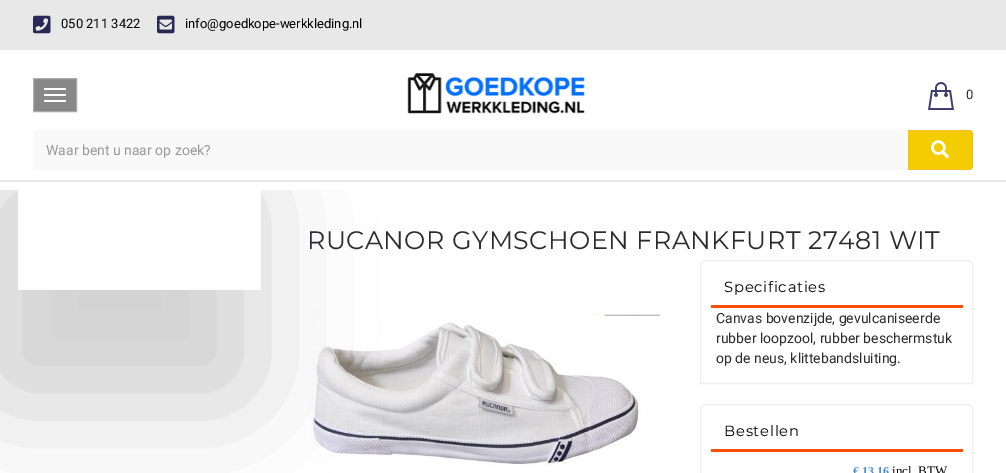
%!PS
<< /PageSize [1006 473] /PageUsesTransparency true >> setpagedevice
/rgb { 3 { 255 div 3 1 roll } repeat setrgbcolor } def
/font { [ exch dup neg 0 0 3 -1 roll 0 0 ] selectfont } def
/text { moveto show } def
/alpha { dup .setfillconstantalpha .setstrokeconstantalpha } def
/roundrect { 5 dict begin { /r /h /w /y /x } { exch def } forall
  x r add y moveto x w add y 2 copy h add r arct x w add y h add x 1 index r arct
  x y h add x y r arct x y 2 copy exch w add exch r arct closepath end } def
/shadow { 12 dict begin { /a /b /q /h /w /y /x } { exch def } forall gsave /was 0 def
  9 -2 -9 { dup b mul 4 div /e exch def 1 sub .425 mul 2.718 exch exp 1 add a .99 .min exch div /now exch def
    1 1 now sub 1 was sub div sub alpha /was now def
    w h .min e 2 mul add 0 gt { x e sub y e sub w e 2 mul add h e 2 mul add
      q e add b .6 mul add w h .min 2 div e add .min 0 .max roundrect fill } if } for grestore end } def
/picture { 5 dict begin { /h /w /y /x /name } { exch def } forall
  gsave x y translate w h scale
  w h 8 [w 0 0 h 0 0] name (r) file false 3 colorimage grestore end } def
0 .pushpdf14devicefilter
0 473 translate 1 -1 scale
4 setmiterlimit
255 255 255 rgb
0 0 1006 473 rectfill
(img_06.rgb) 311 309 349 157 picture
gsave
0 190 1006 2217 rectclip
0 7 moveto 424 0 rlineto 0 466 rlineto -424 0 rlineto closepath 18 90 moveto 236 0 rlineto 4 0 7 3 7 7 rcurveto 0 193 rlineto -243 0 rlineto closepath eoclip newpath
0 0 0 rgb
-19 173 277 234 24 55 0.18 shadow
grestore
232 232 232 rgb
0 0 1006 50 rectfill
(img_01.rgb) 33 15 18 19 picture
(img_02.rgb) 157 15 18 19 picture
136 136 136 rgb
33.5 78.5 moveto 43 0 rlineto 0 33 rlineto -43 0 rlineto closepath gsave fill grestore
170 170 170 rgb
stroke
255 255 255 rgb
44 88 22 2 1 roundrect fill
44 94 22 2 1 roundrect fill
44 100 22 2 1 roundrect fill
(img_03.rgb) 407 73 178 41 picture
(img_04.rgb) 928 82 26 28 picture
249 249 249 rgb
37 130 moveto 871 0 rlineto 0 40 rlineto -871 0 rlineto -2 0 -4 -2 -4 -4 rcurveto 0 -32 rlineto 0 -2 2 -4 4 -4 rcurveto closepath fill
244 204 2 rgb
908 130 moveto 61 0 rlineto 2 0 4 2 4 4 rcurveto 0 32 rlineto 0 2 -2 4 -4 4 rcurveto -61 0 rlineto closepath fill
244 187 32 rgb
908 130 moveto 61 0 rlineto 2 0 4 2 4 4 rcurveto 0 32 rlineto 0 2 -2 4 -4 4 rcurveto -61 0 rlineto closepath 908 131 moveto 61 0 rlineto 2 0 3 1 3 3 rcurveto 0 32 rlineto 0 2 -1 3 -3 3 rcurveto -61 0 rlineto closepath eofill
(img_05.rgb) 931 140 18 19 picture
232 232 232 rgb
0 180 1006 2 rectfill
238 238 238 rgb
705 260.5 moveto 263 0 rlineto 2.5 0 4.5 2 4.5 4.5 rcurveto 0 118.5 rlineto -272 0 rlineto 0 -118.5 rlineto 0 -2.5 2 -4.5 4.5 -4.5 rcurveto closepath stroke
255 78 0 rgb
711 305 252 3 rectfill
238 238 238 rgb
705 404.5 moveto 263 0 rlineto 2.5 0 4.5 2 4.5 4.5 rcurveto 0 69.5 rlineto -272 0 rlineto 0 -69.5 rlineto 0 -2.5 2 -4.5 4.5 -4.5 rcurveto closepath stroke
255 78 0 rgb
711 449 252 3 rectfill
/Roboto-Regular 13 font
0 0 0 rgb
(050 211 3422) 61 28 text
(info@goedkope-werkkleding.nl) 185 28 text
43 42 47 rgb
(0) 966 99 text
/Roboto-Regular 14 font
153 153 153 rgb
(Waar bent u naar op zoek?) 46 155 text
/Montserrat-Regular 25.3 font
43 42 47 rgb
307 249 moveto 0.5 0 (RUCANOR GYMSCHOEN FRANKFURT 27481 WIT) ashow
/Montserrat-Regular 14.75 font
0 0 0 rgb
724 292 moveto 0.75 0 (Specificaties) ashow
/Roboto-Regular 14 font
43 42 47 rgb
(Canvas bovenzijde, gevulcaniseerde) 716 323 text
(rubber loopzool, rubber beschermstuk) 716 343 text
(op de neus, klittebandsluiting.) 716 363 text
/Montserrat-Regular 14.75 font
0 0 0 rgb
724 436 moveto 0.75 0 (Bestellen) ashow
/LiberationSerif-Bold 12 font
73 144 218 rgb
(€ 13,16) 853 475 text
/LiberationSerif-Regular 13 font
0 0 0 rgb
(incl. BTW) 892 475 text
.poppdf14devicefilter showpage
